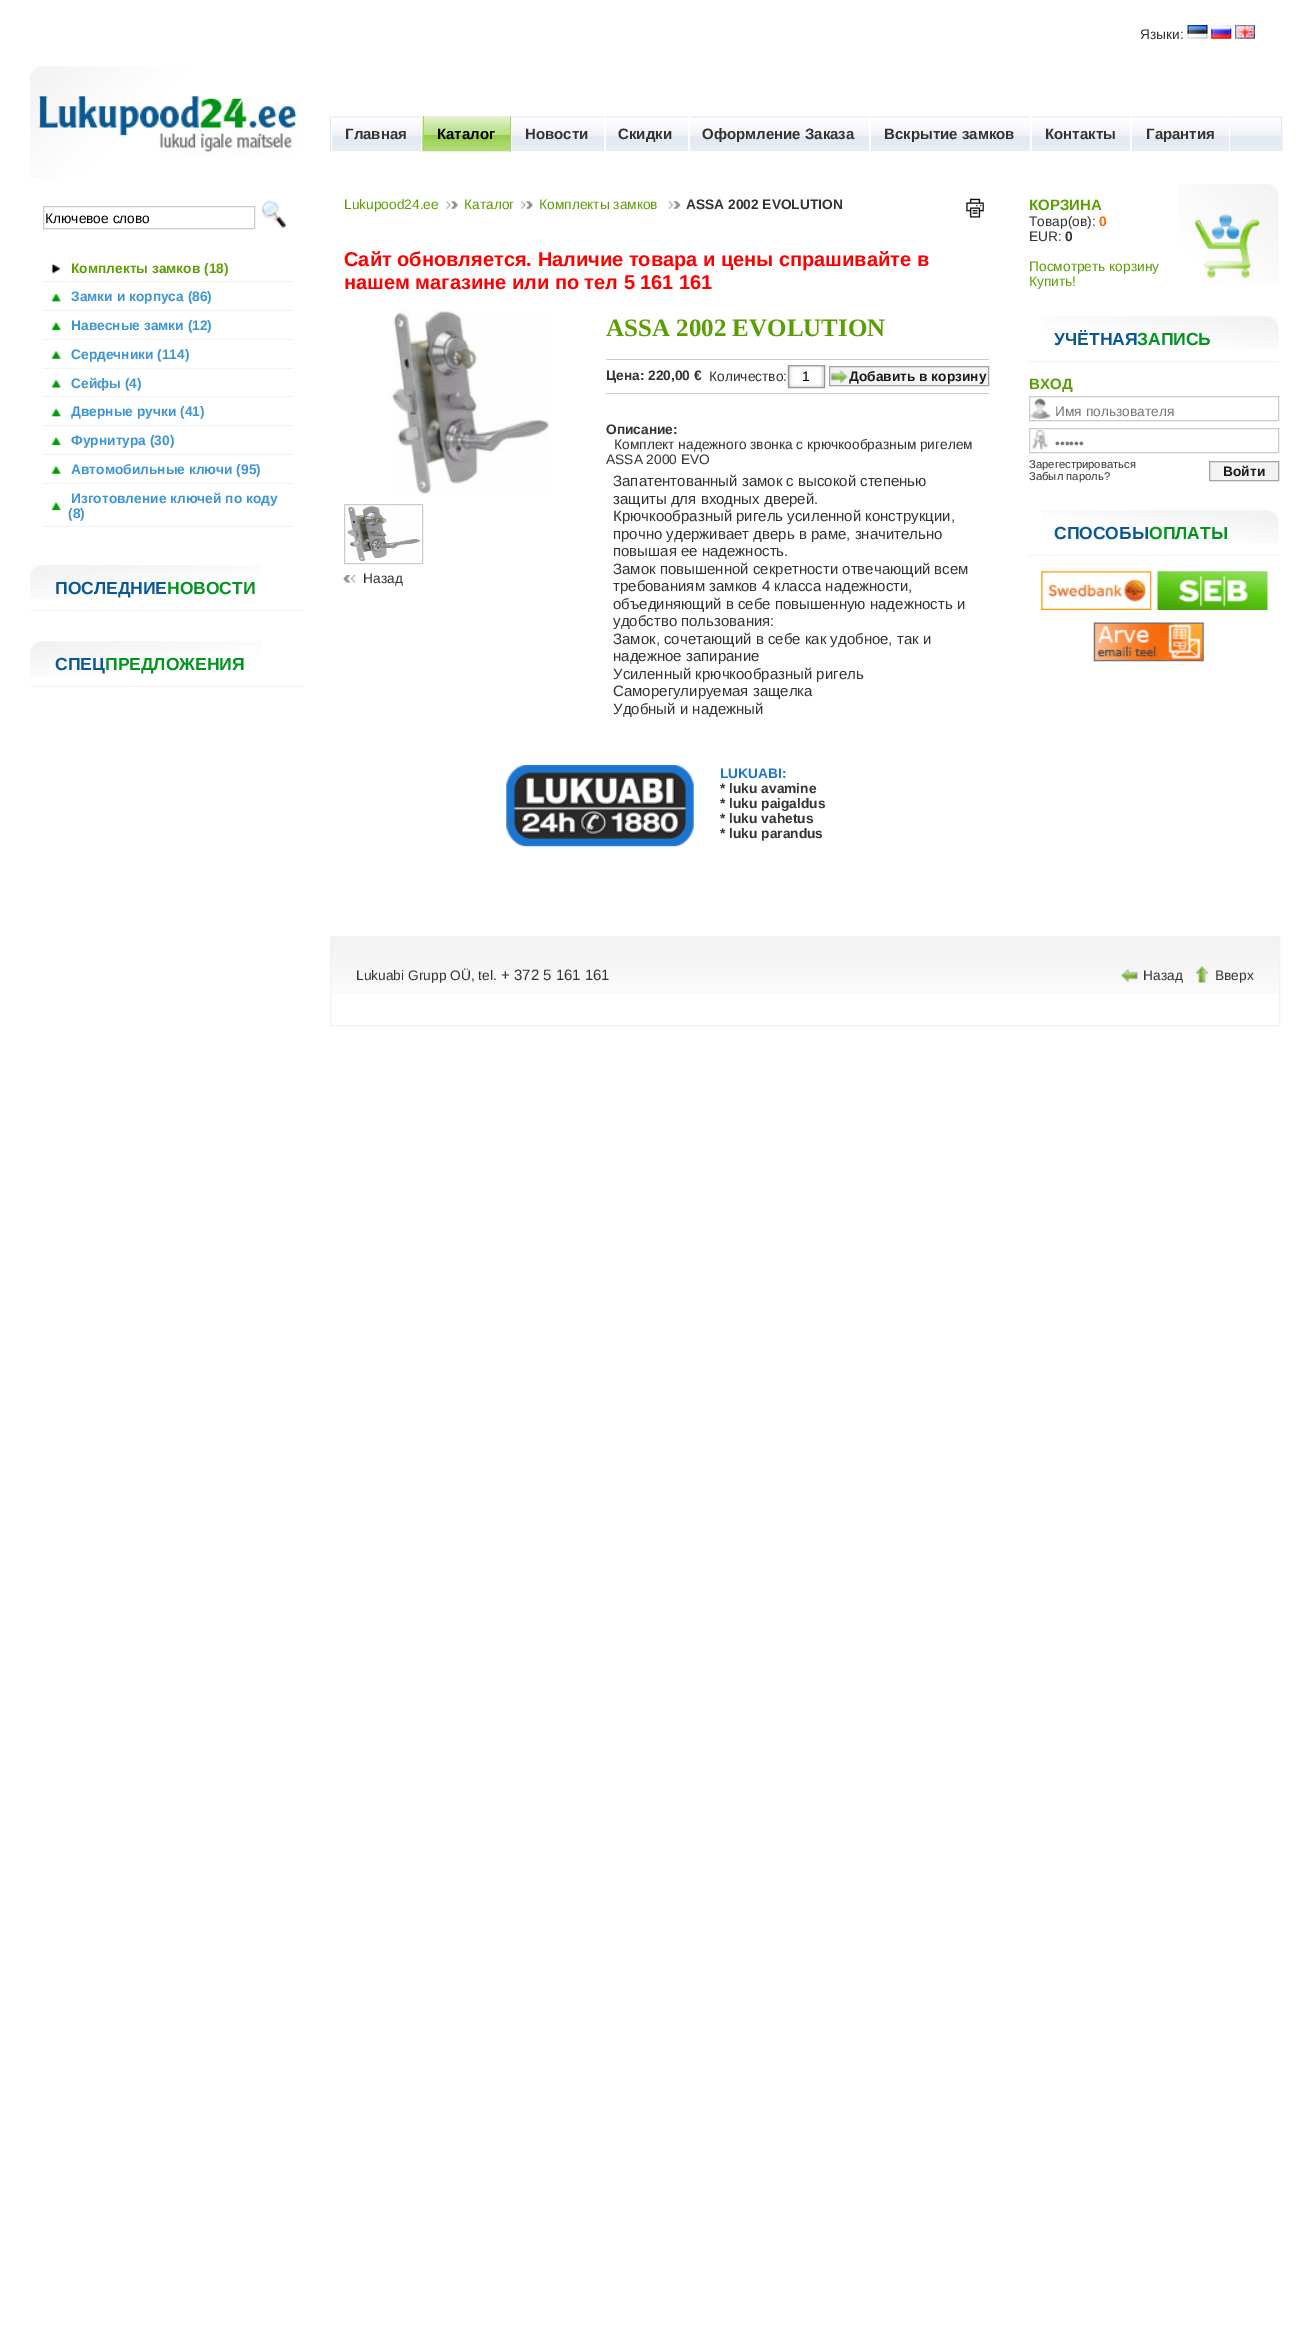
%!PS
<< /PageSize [1309 2351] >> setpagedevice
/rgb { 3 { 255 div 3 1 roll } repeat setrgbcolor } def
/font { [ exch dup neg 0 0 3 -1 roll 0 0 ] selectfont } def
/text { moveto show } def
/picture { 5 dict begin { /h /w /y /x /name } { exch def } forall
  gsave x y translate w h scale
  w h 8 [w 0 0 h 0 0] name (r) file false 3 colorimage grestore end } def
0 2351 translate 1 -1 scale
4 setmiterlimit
255 255 255 rgb
0 0 1309 2351 rectfill
(img_01.rgb) 1187 25 21 14 picture
(img_02.rgb) 1211 25 21 14 picture
(img_03.rgb) 1235 25 20 14 picture
(img_04.rgb) 30 66 270 112 picture
204 204 204 rgb
43.5 206.5 211 22 rectstroke
(img_05.rgb) 261 200 26 28 picture
(img_06.rgb) 51 263 10 11 picture
242 242 242 rgb
43 281 250 1 rectfill
(img_07.rgb) 51 293 11 9 picture
43 310 250 1 rectfill
(img_08.rgb) 51 322 11 9 picture
43 339 250 1 rectfill
(img_09.rgb) 51 351 11 8 picture
43 368 250 1 rectfill
(img_10.rgb) 51 379 11 9 picture
43 396 250 1 rectfill
(img_11.rgb) 51 408 11 9 picture
43 425 250 1 rectfill
(img_08.rgb) 51 437 11 9 picture
43 454 250 1 rectfill
(img_09.rgb) 51 466 11 8 picture
43 483 250 1 rectfill
(img_08.rgb) 51 502 11 9 picture
43 526 250 1 rectfill
(img_12.rgb) 30 565 231 34 picture
30 610 275 1 rectfill
(img_13.rgb) 30 641 231 35 picture
30 686 275 1 rectfill
(img_14.rgb) 330 116 953 36 picture
225 232 240 rgb
1281 116 1 35 rectfill
330 116 1 35 rectfill
255 255 255 rgb
421 116 1 35 rectfill
331 116 1 35 rectfill
(img_15.rgb) 422 116 90 36 picture
163 213 96 rgb
510 116 1 35 rectfill
423 116 1 35 rectfill
255 255 255 rgb
604 116 2 35 rectfill
511 116 1 35 rectfill
688 116 2 35 rectfill
869 116 2 35 rectfill
1030 116 2 35 rectfill
1130 116 2 35 rectfill
1229 116 1 35 rectfill
(img_16.rgb) 446 201 12 8 picture
(img_16.rgb) 521 201 12 8 picture
(img_17.rgb) 668 201 13 8 picture
(img_18.rgb) 966 198 18 20 picture
(img_19.rgb) 391 310 158 184 picture
204 204 204 rgb
344.5 504.5 78 59 rectstroke
(img_20.rgb) 347 506 73 56 picture
(img_21.rgb) 343 574 13 9 picture
606 359 383 1 rectfill
606 393 383 1 rectfill
(img_22.rgb) 787 365 37 23 picture
153 153 153 rgb
788.5 365.5 36 22 rectstroke
243 243 243 rgb
830 367 158 18 rectfill
(img_23.rgb) 831 370 17 14 picture
163 163 163 rgb
829.5 366.5 159 19 rectstroke
(img_24.rgb) 506 765 188 82 picture
(img_25.rgb) 1178 184 101 100 picture
(img_26.rgb) 1042 316 237 33 picture
242 242 242 rgb
1029 361 250 1 rectfill
(img_27.rgb) 1030 398 20 21 picture
204 204 204 rgb
1029.5 396.5 249 24 rectstroke
(img_28.rgb) 1032 430 16 20 picture
1029.5 428.5 249 24 rectstroke
243 243 243 rgb
1209.5 461.5 moveto 69 0 rlineto 0 19 rlineto -69 0 rlineto closepath gsave fill grestore
163 163 163 rgb
stroke
(img_29.rgb) 1042 510 237 33 picture
242 242 242 rgb
1029 555 250 1 rectfill
(img_30.rgb) 1041 571 111 39 picture
(img_31.rgb) 1157 571 111 39 picture
(img_32.rgb) 1093 622 111 40 picture
(img_33.rgb) 331 937 948 57 picture
330.5 936.5 949 89 rectstroke
(img_34.rgb) 1121 968 17 15 picture
(img_35.rgb) 1195 966 14 17 picture
/LiberationSans-Regular 13.75 font
51 51 51 rgb
(Языки:) 1140 39 text
0 0 0 rgb
(Ключевое слово) 45 223 text
/LiberationSans-Bold 13.75 font
91 158 3 rgb
(Комплекты замков \(18\)) 71 273 text
59 149 212 rgb
(Замки и корпуса \(86\)) 71 301 text
(Навесные замки \(12\)) 71 330 text
(Сердечники \(114\)) 71 359 text
(Сейфы \(4\)) 71 388 text
(Дверные ручки \(41\)) 71 416 text
(Фурнитура \(30\)) 71 445 text
(Автомобильные ключи \(95\)) 71 474 text
(Изготовление ключей по коду) 71 503 text
(\(8\)) 68 518 text
/LiberationSans-Bold 17.5 font
8 88 147 rgb
(ПОСЛЕДНИЕ) 55 594 text
1 148 31 rgb
(НОВОСТИ) 167 594 text
8 88 147 rgb
(СПЕЦ) 55 670 text
1 148 31 rgb
(ПРЕДЛОЖЕНИЯ) 105 670 text
/LiberationSans-Bold 15 font
51 51 51 rgb
(Главная) 345 139 text
0 0 0 rgb
(Каталог) 437 139 text
51 51 51 rgb
(Новости) 525 139 text
(Скидки) 618 139 text
(Оформление Заказа) 702 139 text
(Вскрытие замков) 884 139 text
(Контакты) 1045 139 text
(Гарантия) 1146 139 text
/LiberationSans-Regular 13.75 font
91 158 3 rgb
(Lukupood24.ee) 344 209 text
(Каталог) 464 209 text
(Комплекты замков) 539 209 text
/LiberationSans-Bold 13.75 font
51 51 51 rgb
(ASSA 2002 EVOLUTION) 686 209 text
/LiberationSans-Bold 20 font
255 0 0 rgb
(Сайт обновляется. Наличие товара и цены спрашивайте в) 344 266 text
(нашем магазине или по тел 5 161 161) 344 289 text
/LiberationSans-Regular 13.75 font
51 51 51 rgb
(Назад) 363 583 text
/LiberationSerif-Bold 25 font
91 158 3 rgb
(ASSA 2002 EVOLUTION) 606 336 text
/LiberationSans-Bold 13.75 font
51 51 51 rgb
(Цена: 220,00 €) 606 380 text
/LiberationSans-Regular 13.75 font
(Количество:) 709 381 text
0 0 0 rgb
(1) 802 381 text
/LiberationSans-Bold 13.75 font
26 26 26 rgb
(Добавить в корзину) 849 381 text
51 51 51 rgb
(Описание:) 606 434 text
/LiberationSans-Regular 13.75 font
(Комплект надежного звонка с крючкообразным ригелем) 614 449 text
(ASSA 2000 EVO) 606 464 text
/LiberationSans-Regular 15 font
(Запатентованный замок с высокой степенью) 613 486 text
(защиты для входных дверей.) 613 504 text
(Крючкообразный ригель усиленной конструкции,) 613 521 text
(прочно удерживает дверь в раме, значительно) 613 539 text
(повышая ее надежность.) 613 556 text
(Замок повышенной секретности отвечающий всем) 613 574 text
(требованиям замков 4 класса надежности,) 613 591 text
(объединяющий в себе повышенную надежность и) 613 609 text
(удобство пользования:) 613 626 text
(Замок, сочетающий в себе как удобное, так и) 613 644 text
(надежное запирание) 613 661 text
(Усиленный крючкообразный ригель) 613 679 text
(Саморегулируемая защелка) 613 696 text
(Удобный и надежный) 613 714 text
/LiberationSans-Bold 13.75 font
27 117 207 rgb
(LUKUABI:) 720 778 text
51 51 51 rgb
(* luku avamine) 720 793 text
(* luku paigaldus) 720 808 text
(* luku vahetus) 720 823 text
(* luku parandus) 720 838 text
/LiberationSans-Bold 15 font
91 158 3 rgb
(КОРЗИНА) 1029 210 text
/LiberationSans-Regular 13.75 font
51 51 51 rgb
(Товар\(ов\):) 1029 226 text
/LiberationSans-Bold 13.75 font
255 102 0 rgb
(0) 1099 226 text
/LiberationSans-Regular 13.75 font
51 51 51 rgb
(EUR:) 1029 241 text
/LiberationSans-Bold 13.75 font
(0) 1065 241 text
/LiberationSans-Regular 13.75 font
91 158 3 rgb
(Посмотреть корзину) 1029 271 text
(Купить!) 1029 286 text
/LiberationSans-Bold 17.5 font
8 88 147 rgb
(УЧЁТНАЯ) 1054 345 text
1 148 31 rgb
(ЗАПИСЬ) 1137 345 text
/LiberationSans-Bold 15 font
91 158 3 rgb
(ВХОД) 1029 389 text
/LiberationSans-Regular 13.75 font
119 119 119 rgb
(Имя пользователя) 1055 416 text
(••••••) 1055 448 text
/LiberationSans-Regular 11.25 font
51 51 51 rgb
(Зарегестрироваться) 1029 468 text
(Забыл пароль?) 1029 480 text
/LiberationSans-Bold 13.75 font
26 26 26 rgb
(Войти) 1223 476 text
/LiberationSans-Bold 17.5 font
8 88 147 rgb
(СПОСОБЫ) 1054 539 text
1 148 31 rgb
(ОПЛАТЫ) 1149 539 text
/LiberationSans-Regular 13.75 font
51 51 51 rgb
(Lukuabi Grupp OÜ, tel.) 356 980 text
/LiberationSans-Regular 15 font
(+ 372 5 161 161) 501 980 text
/LiberationSans-Regular 13.75 font
(Назад) 1143 980 text
(Вверх) 1215 980 text
showpage
